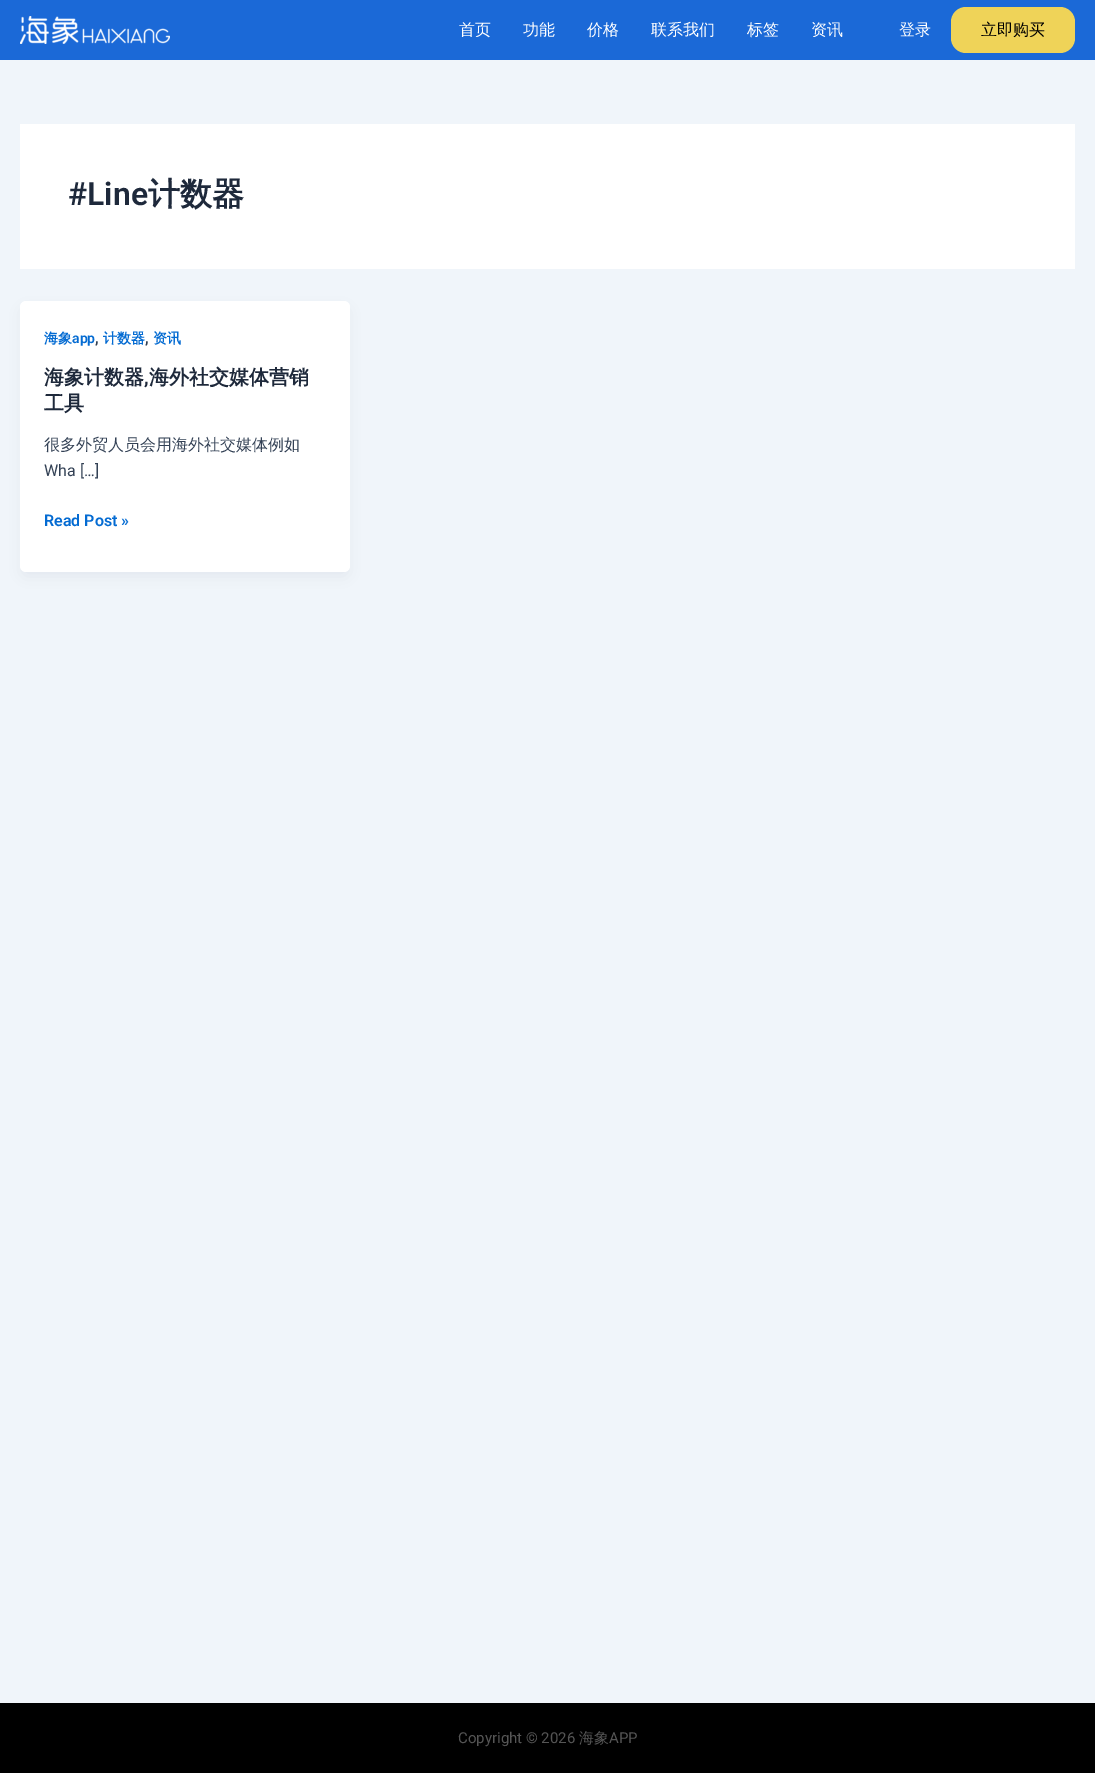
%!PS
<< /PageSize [1095 1773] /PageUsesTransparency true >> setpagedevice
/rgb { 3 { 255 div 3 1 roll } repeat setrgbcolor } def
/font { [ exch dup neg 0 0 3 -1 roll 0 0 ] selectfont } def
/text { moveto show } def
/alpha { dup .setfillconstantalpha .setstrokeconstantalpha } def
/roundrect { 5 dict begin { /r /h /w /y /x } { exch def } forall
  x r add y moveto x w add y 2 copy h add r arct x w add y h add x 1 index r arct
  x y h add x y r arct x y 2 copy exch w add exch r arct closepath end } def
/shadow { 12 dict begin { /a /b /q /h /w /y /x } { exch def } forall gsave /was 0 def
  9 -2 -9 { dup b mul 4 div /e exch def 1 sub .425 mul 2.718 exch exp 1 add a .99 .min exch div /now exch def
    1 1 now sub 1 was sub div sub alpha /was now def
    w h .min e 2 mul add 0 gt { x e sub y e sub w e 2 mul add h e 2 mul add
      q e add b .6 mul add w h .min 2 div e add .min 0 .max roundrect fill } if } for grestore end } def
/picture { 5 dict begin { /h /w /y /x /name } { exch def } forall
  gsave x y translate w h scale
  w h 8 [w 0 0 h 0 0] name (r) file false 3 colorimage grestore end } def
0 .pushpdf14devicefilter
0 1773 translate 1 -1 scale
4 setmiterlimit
240 245 250 rgb
0 0 1095 1773 rectfill
27 105 215 rgb
0 0 1095 60 rectfill
(img_01.rgb) 20 16 150 28 picture
239 211 88 rgb
951 7 124 46 15 roundrect fill
255 255 255 rgb
20 124 1055 145 rectfill
16 24 40 rgb
22 309 326 267 4 7.5 0.05 shadow
255 255 255 rgb
20 301 330 271 6 roundrect fill
0 0 0 rgb
0 1703 1095 70 rectfill
/WenQuanYiZenHei-Medium 16 font
255 255 255 rgb
(首页) 459 35 text
(功能) 523 35 text
(价格) 587 35 text
(联系我们) 651 35 text
(标签) 747 35 text
(资讯) 811 35 text
(登录) 899 35 text
0 0 0 rgb
(立即购买) 981 35 text
/Roboto-SemiBold 32 font
30 41 59 rgb
(#Line) 68 205 text
/WenQuanYiZenHei-Bold 32 font
(计数器) 148 205 text
/WenQuanYiZenHei-Bold 14 font
4 107 210 rgb
(海象) 44 343 text
/Roboto-SemiBold 14 font
(app) 72 343 text
/Roboto-SemiBold 16 font
51 65 85 rgb
(,) 95 343 text
/WenQuanYiZenHei-Bold 14 font
4 107 210 rgb
(计数器) 103 343 text
/Roboto-SemiBold 16 font
51 65 85 rgb
(,) 145 343 text
/WenQuanYiZenHei-Bold 14 font
4 107 210 rgb
(资讯) 153 343 text
/WenQuanYiZenHei-Bold 20 font
30 41 59 rgb
(海象计数器) 44 384 text
/Roboto-SemiBold 20 font
(,) 144 384 text
/WenQuanYiZenHei-Bold 20 font
(海外社交媒体营销) 149 384 text
(工具) 44 410 text
/WenQuanYiZenHei-Medium 16 font
51 65 85 rgb
(很多外贸人员会用海外社交媒体例如) 44 450 text
/Roboto-Regular 16 font
(Wha […]) 44 476 text
/Roboto-SemiBold 16 font
4 107 210 rgb
(Read Post ») 44 526 text
/Roboto-Regular 15 font
85 85 85 rgb
(Copyright © 2026) 458 1743 text
/WenQuanYiZenHei-Medium 15 font
(海象) 579 1743 text
/Roboto-Regular 15 font
(APP) 609 1743 text
.poppdf14devicefilter showpage
